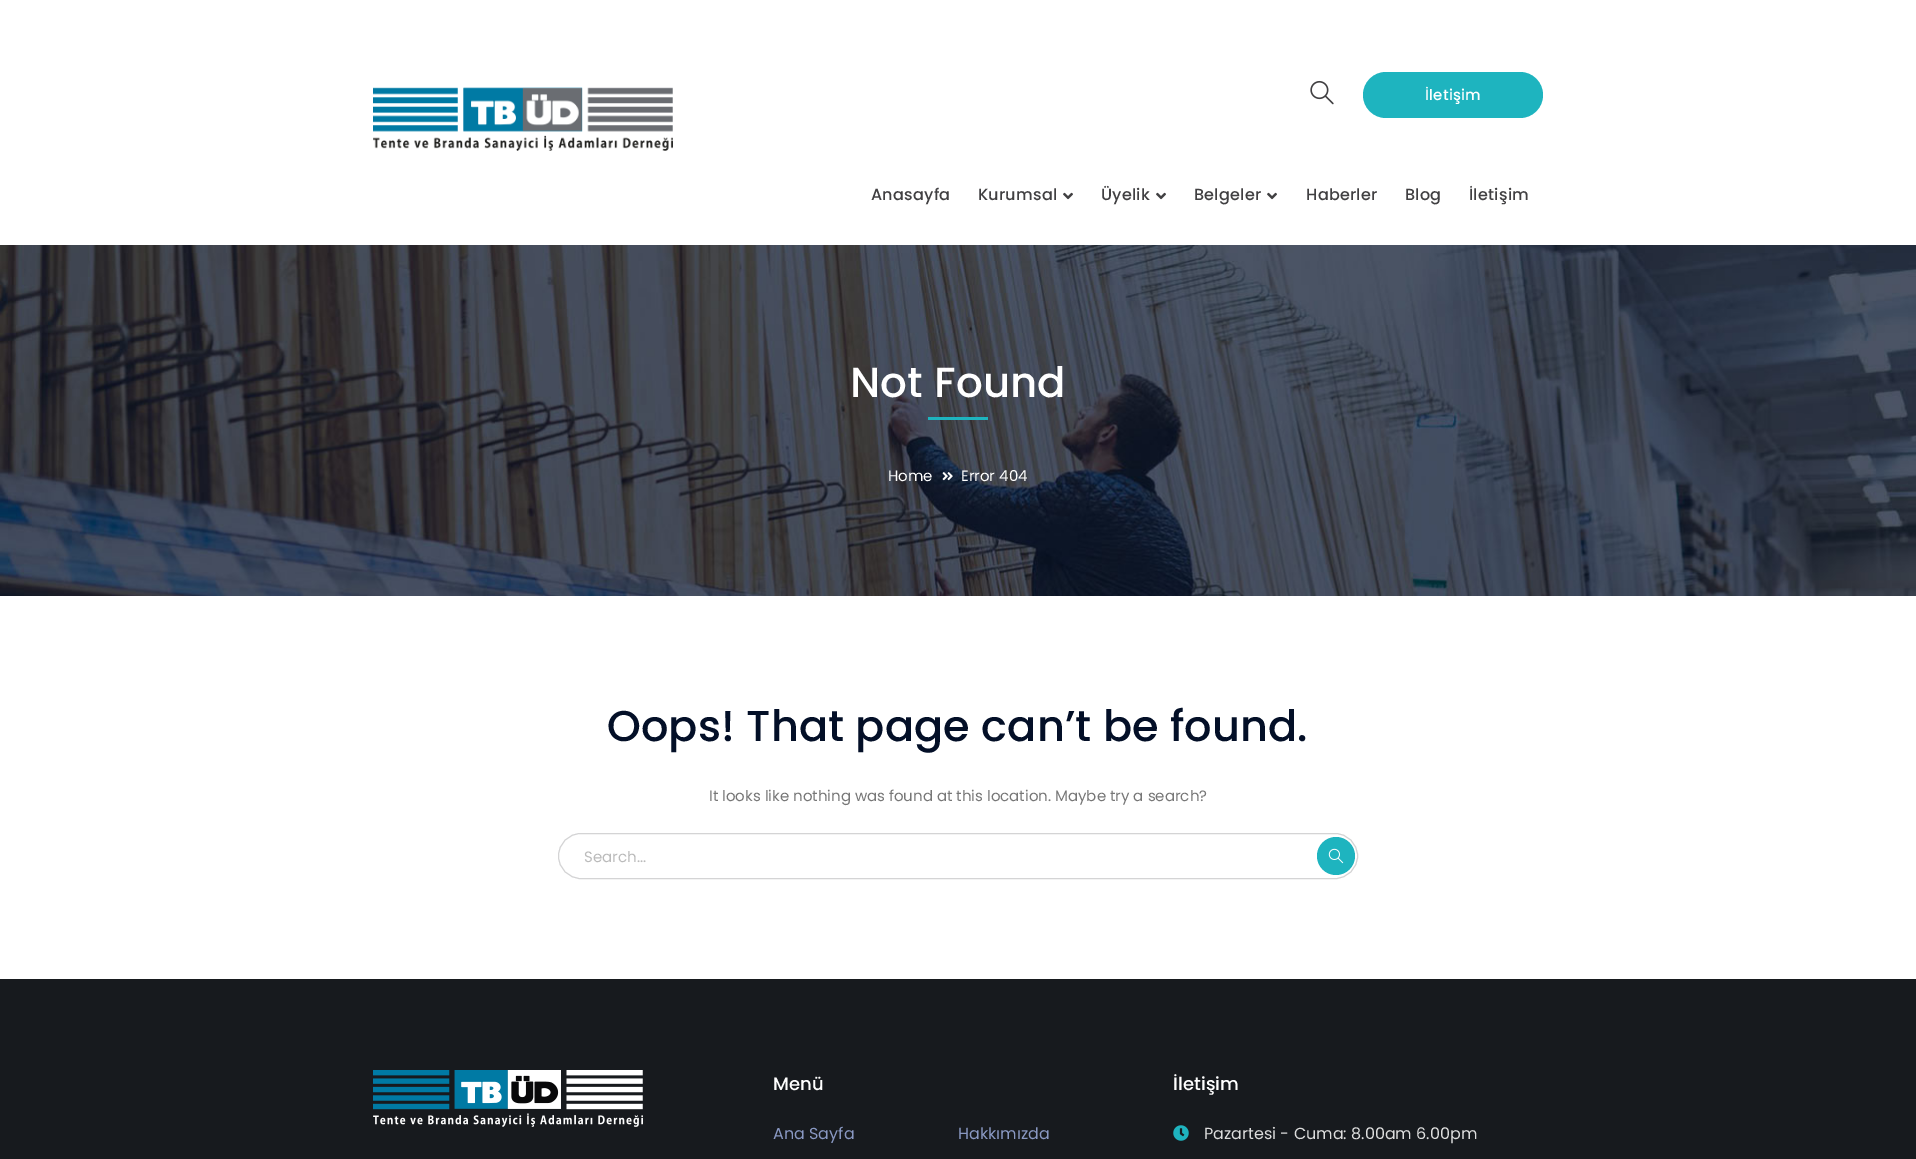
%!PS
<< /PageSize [1916 1159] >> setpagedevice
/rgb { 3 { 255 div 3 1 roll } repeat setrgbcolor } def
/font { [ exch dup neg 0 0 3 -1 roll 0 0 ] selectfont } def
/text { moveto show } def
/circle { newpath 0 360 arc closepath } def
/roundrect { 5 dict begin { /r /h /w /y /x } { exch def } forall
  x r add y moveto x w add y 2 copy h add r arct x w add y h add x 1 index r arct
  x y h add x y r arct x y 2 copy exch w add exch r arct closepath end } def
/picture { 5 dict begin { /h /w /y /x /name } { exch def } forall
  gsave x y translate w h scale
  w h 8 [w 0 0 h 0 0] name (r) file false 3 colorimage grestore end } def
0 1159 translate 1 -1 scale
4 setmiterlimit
255 255 255 rgb
0 0 1916 1159 rectfill
(img_01.rgb) 373 87 300 64 picture
(img_02.rgb) 1310 80 24 25 picture
30 180 191 rgb
1363 72 180 46 23 roundrect fill
(img_03.rgb) 1063 192 10 8 picture
(img_03.rgb) 1156 192 10 8 picture
(img_03.rgb) 1267 192 10 8 picture
(img_04.rgb) 0 245 1916 351 picture
928 417 60 3 rectfill
(img_05.rgb) 942 472 11 9 picture
212 212 213 rgb
558.5 833.5 799 45 22.5 roundrect stroke
30 180 191 rgb
1336 856 19 circle fill
(img_06.rgb) 1328 848 16 16 picture
23 26 30 rgb
0 979 1916 180 rectfill
(img_07.rgb) 373 1070 270 57 picture
(img_08.rgb) 1173 1125 16 16 picture
/Poppins-Medium 15 font
255 255 255 rgb
1425 100 moveto 0.25 0 (İletişim) ashow
/Poppins-Medium 16 font
65 64 66 rgb
871 200 moveto 0.25 0 (Anasayfa) ashow
978 200 moveto 0.25 0 (Kurumsal) ashow
1101 200 moveto 0.25 0 (Üyelik) ashow
1194 200 moveto 0.25 0 (Belgeler) ashow
1306 200 moveto 0.25 0 (Haberler) ashow
1405 200 moveto 0.25 0 (Blog) ashow
1469 200 moveto 0.25 0 (İletişim) ashow
/Poppins-Medium 42 font
255 255 255 rgb
850 397 moveto 0.1 0 (Not Found) ashow
/Poppins-Regular 15 font
(Home) 888 481 text
(Error 404) 961 481 text
/Poppins-Medium 43.1 font
3 15 39 rgb
607 741 moveto 0.1 0 (Oops! That page can’t be found.) ashow
/Poppins-Regular 15 font
119 119 119 rgb
(It looks like nothing was found at this location. Maybe try a search?) 709 801 text
187 187 187 rgb
(Search...) 584 862 text
/Poppins-Medium 18 font
255 255 255 rgb
773 1090 moveto 0.1 0 (Menü) ashow
/Poppins-Regular 16 font
137 152 194 rgb
(Ana Sayfa) 773 1139 text
(Hakkımızda) 958 1139 text
/Poppins-Medium 18 font
255 255 255 rgb
1173 1090 moveto 0.1 0 (İletişim) ashow
/Poppins-Regular 16 font
221 221 221 rgb
(Pazartesi - Cuma: 8.00am 6.00pm) 1204 1139 text
showpage
